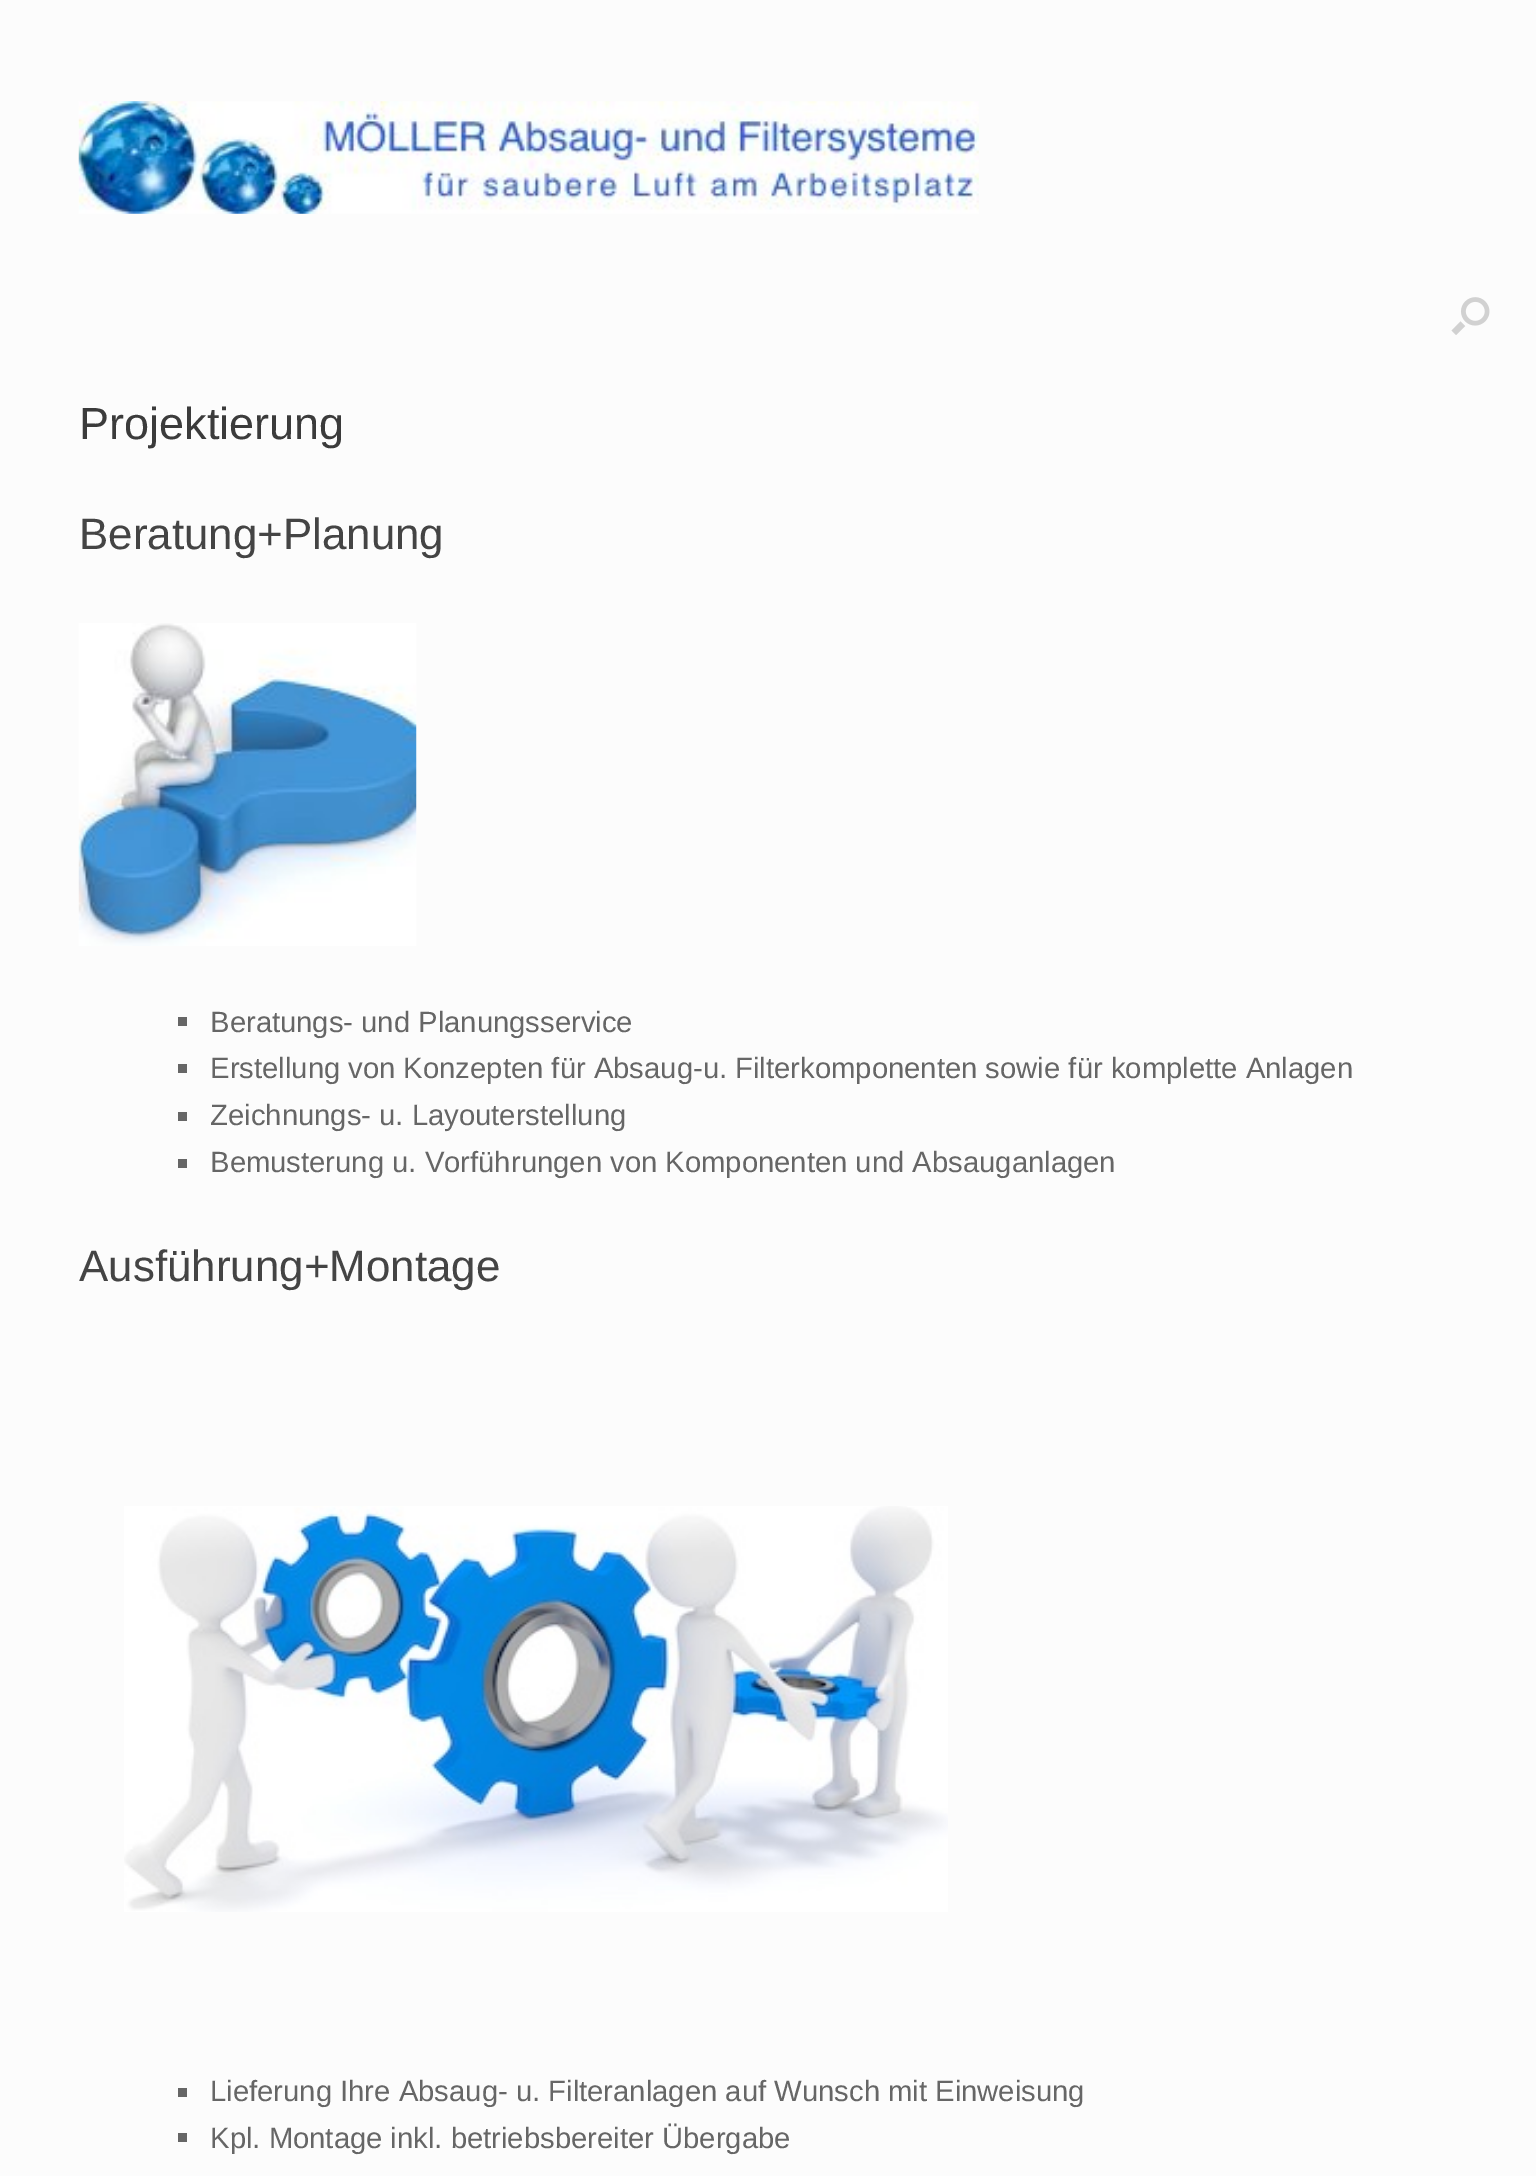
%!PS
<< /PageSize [1536 2176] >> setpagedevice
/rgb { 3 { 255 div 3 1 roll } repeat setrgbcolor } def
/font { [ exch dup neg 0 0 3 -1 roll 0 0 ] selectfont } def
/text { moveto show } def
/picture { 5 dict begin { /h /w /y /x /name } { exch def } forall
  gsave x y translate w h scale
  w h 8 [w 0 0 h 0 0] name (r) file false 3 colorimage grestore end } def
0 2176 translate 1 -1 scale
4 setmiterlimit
252 252 252 rgb
0 0 1536 2176 rectfill
(img_01.rgb) 78 101 901 113 picture
(img_02.rgb) 1451 297 39 38 picture
(img_03.rgb) 78 623 339 323 picture
102 102 102 rgb
178 1017 9 9 rectfill
178 1064 9 9 rectfill
178 1112 9 9 rectfill
178 1159 9 9 rectfill
(img_04.rgb) 124 1506 824 406 picture
178 2088 9 9 rectfill
178 2133 9 9 rectfill
/LiberationSans-Regular 45 font
59 59 59 rgb
(Projektierung) 79 439 text
/LiberationSans-Regular 43.9 font
68 68 68 rgb
(Beratung+Planung) 79 549 text
/LiberationSans-Regular 29.25 font
102 102 102 rgb
(Beratungs- und Planungsservice) 210 1032 text
(Erstellung von Konzepten für Absaug-u. Filterkomponenten sowie für komplette Anlagen) 210 1078 text
(Zeichnungs- u. Layouterstellung) 210 1125 text
(Bemusterung u. Vorführungen von Komponenten und Absauganlagen) 210 1172 text
/LiberationSans-Regular 43.9 font
68 68 68 rgb
(Ausführung+Montage) 79 1281 text
/LiberationSans-Regular 29.25 font
102 102 102 rgb
(Lieferung Ihre Absaug- u. Filteranlagen auf Wunsch mit Einweisung) 210 2101 text
(Kpl. Montage inkl. betriebsbereiter Übergabe) 210 2148 text
showpage
